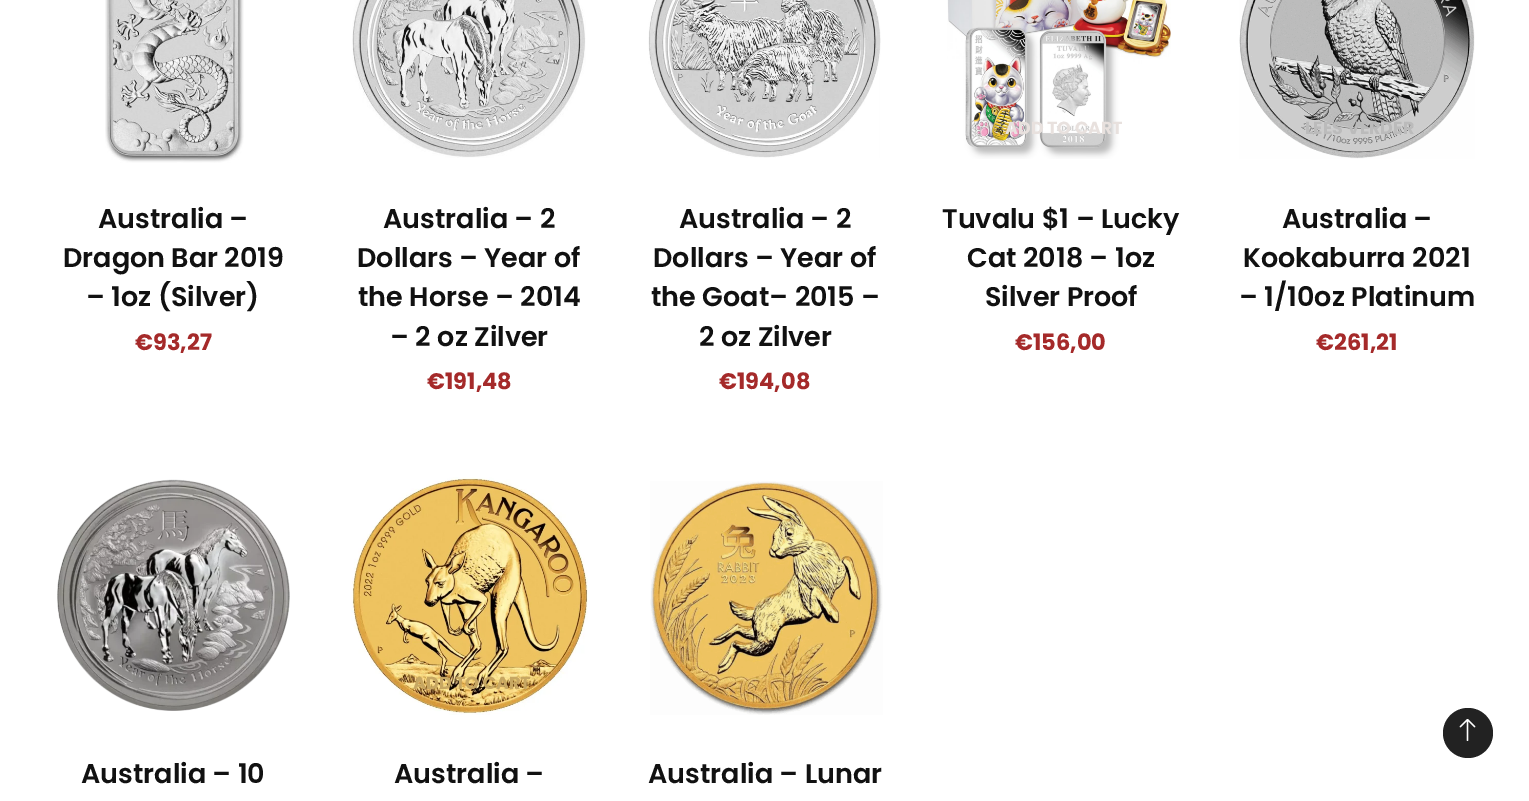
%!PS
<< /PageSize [1529 801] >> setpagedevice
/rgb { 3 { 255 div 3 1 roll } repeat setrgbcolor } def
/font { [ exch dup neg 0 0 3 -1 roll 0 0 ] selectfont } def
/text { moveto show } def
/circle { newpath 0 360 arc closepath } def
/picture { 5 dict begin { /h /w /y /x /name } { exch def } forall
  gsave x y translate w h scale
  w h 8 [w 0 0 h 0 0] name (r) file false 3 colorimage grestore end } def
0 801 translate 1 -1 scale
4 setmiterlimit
255 255 255 rgb
0 0 1529 801 rectfill
(img_01.rgb) 105 0 139 163 picture
(img_02.rgb) 352 0 234 158 picture
(img_03.rgb) 648 0 233 158 picture
(img_04.rgb) 947 0 224 159 picture
(img_05.rgb) 1239 0 236 159 picture
(img_06.rgb) 57 479 233 232 picture
(img_07.rgb) 351 477 237 238 picture
(img_08.rgb) 650 481 233 234 picture
34 34 34 rgb
1468 733 25 circle fill
(img_09.rgb) 1459 719 17 22 picture
/Poppins-SemiBold 27 font
17 17 17 rgb
(Australia –) 98 228 text
(Dragon Bar 2019) 63 267 text
(– 1oz \(Silver\)) 86 306 text
/Poppins-Bold 22.5 font
165 42 42 rgb
(€93,27) 135 350 text
/Poppins-SemiBold 27 font
17 17 17 rgb
(Australia – 2) 383 228 text
(Dollars – Year of) 357 267 text
(the Horse – 2014) 358 306 text
(– 2 oz Zilver) 390 346 text
/Poppins-Bold 22.5 font
165 42 42 rgb
(€191,48) 427 389 text
/Poppins-SemiBold 27 font
17 17 17 rgb
(Australia – 2) 679 228 text
(Dollars – Year of) 653 267 text
(the Goat– 2015 –) 651 306 text
(2 oz Zilver) 699 346 text
/Poppins-Bold 22.5 font
165 42 42 rgb
(€194,08) 719 389 text
/Poppins-Bold 17.5 font
232 225 222 rgb
(ADD TO CART) 1005 134 text
/Poppins-SemiBold 27 font
17 17 17 rgb
(Tuvalu $1 – Lucky) 942 228 text
(Cat 2018 – 1oz) 967 267 text
(Silver Proof) 985 306 text
/Poppins-Bold 22.5 font
165 42 42 rgb
(€156,00) 1015 350 text
/Poppins-Bold 17.5 font
187 187 187 rgb
(LEES VERDER) 1305 134 text
/Poppins-SemiBold 27 font
17 17 17 rgb
(Australia –) 1282 228 text
(Kookaburra 2021) 1243 267 text
(– 1/10oz Platinum) 1239 306 text
/Poppins-Bold 22.5 font
165 42 42 rgb
(€261,21) 1316 350 text
/Poppins-SemiBold 27 font
17 17 17 rgb
(Australia – 10) 81 783 text
/Poppins-Bold 17.5 font
199 167 98 rgb
(ADD TO CART) 413 689 text
/Poppins-SemiBold 27 font
17 17 17 rgb
(Australia –) 394 783 text
(Australia – Lunar) 648 783 text
showpage
